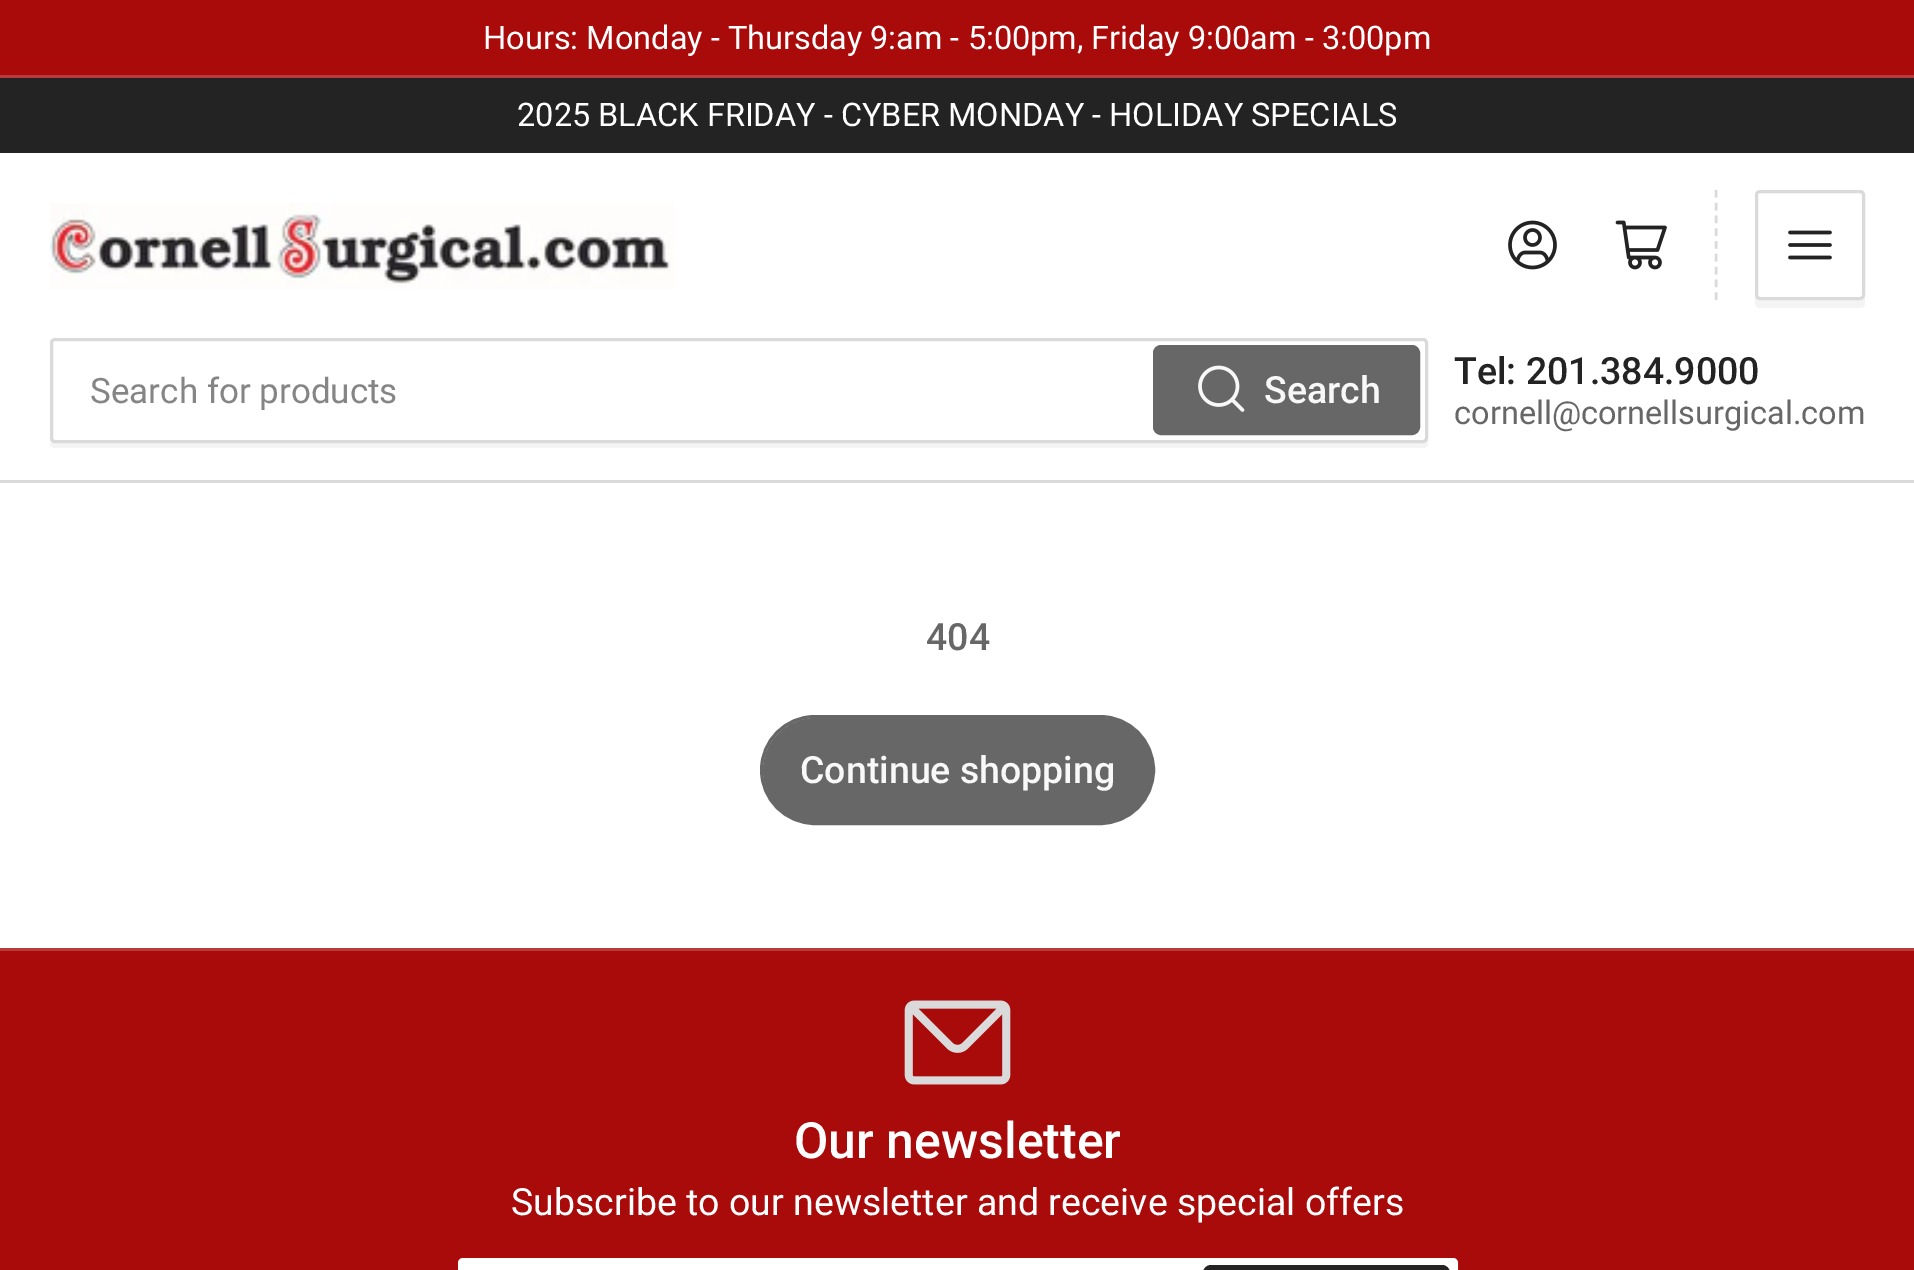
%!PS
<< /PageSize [1914 1270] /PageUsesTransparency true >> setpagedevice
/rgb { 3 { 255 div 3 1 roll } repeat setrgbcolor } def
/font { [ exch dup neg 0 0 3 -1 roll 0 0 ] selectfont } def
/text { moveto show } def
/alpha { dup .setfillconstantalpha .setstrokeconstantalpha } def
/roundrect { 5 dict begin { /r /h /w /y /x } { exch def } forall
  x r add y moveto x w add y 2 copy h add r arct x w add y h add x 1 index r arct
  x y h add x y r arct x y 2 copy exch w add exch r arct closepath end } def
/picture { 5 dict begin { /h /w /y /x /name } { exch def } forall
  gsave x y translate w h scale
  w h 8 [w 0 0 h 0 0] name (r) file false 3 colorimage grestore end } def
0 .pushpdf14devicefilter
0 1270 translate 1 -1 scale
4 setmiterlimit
255 255 255 rgb
0 0 1914 1270 rectfill
169 10 10 rgb
0 0 1914 75 rectfill
185 58 58 rgb
0 75 1914 3 rectfill
35 35 35 rgb
0 78 1914 75 rectfill
218 218 218 rgb
0 480 1914 3 rectfill
(img_01.rgb) 50 203 625 86 picture
(img_02.rgb) 1508 220 49 50 picture
(img_03.rgb) 1615 220 52 50 picture
2.5 setlinewidth
[7.5 5.3] 0 setdash
1716 190 moveto 0 110 rlineto stroke
244 244 244 rgb
1755 295 moveto 0 8 rlineto 0 3 2 5 5 5 rcurveto 100 0 rlineto 3 0 5 -2 5 -5 rcurveto 0 -8 rlineto 0 3 -2 5 -5 5 rcurveto -100 0 rlineto -3 0 -5 -2 -5 -5 rcurveto closepath fill
218 218 218 rgb
3 setlinewidth
[] 0 setdash
1756.5 191.5 107 107 3.5 roundrect stroke
(img_04.rgb) 1788 230 44 30 picture
244 244 244 rgb
50 438 moveto 0 5 rlineto 0 3 2 5 5 5 rcurveto 1368 0 rlineto 3 0 5 -2 5 -5 rcurveto 0 -95 rlineto 0 -2 rlineto 0 92 rlineto 0 2 -3 4 -6 4 rcurveto -1367 0 rlineto -3 0 -5 -2 -5 -4 rcurveto closepath fill
255 255 255 rgb
51.5 339.5 1375 102 3.5 roundrect gsave fill grestore
218 218 218 rgb
stroke
103 103 103 rgb
1154.5 346.5 264 87 6.5 roundrect stroke
1155 348 263 85 5 roundrect fill
(img_05.rgb) 1198 365 47 47 picture
761.5 716.5 392 107 53.5 roundrect stroke
763 718 390 105 52.5 roundrect fill
169 10 10 rgb
0 951 1914 319 rectfill
185 58 58 rgb
0 948 1914 3 rectfill
(img_06.rgb) 904 1000 107 85 picture
255 255 255 rgb
458 1258 1000 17 5 roundrect fill
0.2 alpha
248 248 248 rgb
459.5 1259.5 997 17 3.5 roundrect stroke
1 alpha
35 35 35 rgb
1204.5 1266.5 244 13 6.5 roundrect stroke
1205 1268 243 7 5 roundrect fill
/Roboto-Regular 32.5 font
255 255 255 rgb
(Hours: Monday - Thursday 9:am - 5:00pm, Friday 9:00am - 3:00pm) 483 49 text
(2025 BLACK FRIDAY - CYBER MONDAY - HOLIDAY SPECIALS) 517 126 text
gsave
90 370 1298 40 rectclip
/Roboto-Regular 35 font
133 133 133 rgb
(Search for products) 90 403 text
grestore
/Roboto-Medium 37.5 font
248 248 248 rgb
(Search) 1264 403 text
35 35 35 rgb
(Tel: 201.384.9000) 1454 384 text
/Roboto-Regular 32.5 font
103 103 103 rgb
(cornell@cornellsurgical.com) 1454 424 text
/Roboto-Medium 37.5 font
(404) 926 650 text
248 248 248 rgb
(Continue shopping) 800 783 text
/Roboto-Medium 50 font
255 255 255 rgb
(Our newsletter) 794 1158 text
/Roboto-Regular 37.5 font
(Subscribe to our newsletter and receive special offers) 511 1215 text
.poppdf14devicefilter showpage
